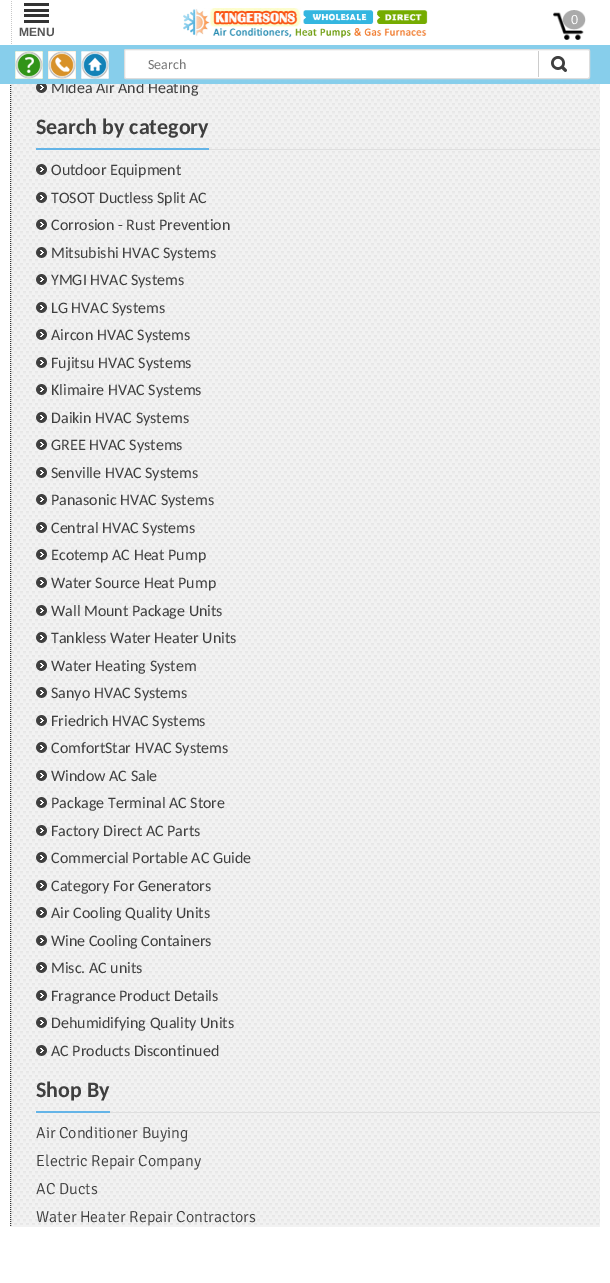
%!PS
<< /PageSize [610 1283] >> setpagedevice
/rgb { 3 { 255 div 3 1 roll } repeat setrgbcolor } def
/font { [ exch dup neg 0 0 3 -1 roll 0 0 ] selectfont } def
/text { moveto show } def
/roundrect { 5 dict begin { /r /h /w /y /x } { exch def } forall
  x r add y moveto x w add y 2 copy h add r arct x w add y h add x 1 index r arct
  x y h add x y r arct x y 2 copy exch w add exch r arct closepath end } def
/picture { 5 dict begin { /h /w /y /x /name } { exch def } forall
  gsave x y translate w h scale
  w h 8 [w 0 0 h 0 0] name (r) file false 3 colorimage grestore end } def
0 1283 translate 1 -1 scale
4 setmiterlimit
255 255 255 rgb
0 0 610 1283 rectfill
242 242 242 rgb
10 84 590 1143 rectfill
(img_07.rgb) 10 84 590 1141 picture
51 51 51 rgb
[1 1] 0 setdash
10.5 -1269 moveto 0 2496 rlineto stroke
255 255 255 rgb
10 1 1 43 rectfill
(img_01.rgb) 183 8 245 30 picture
51 51 51 rgb
24 3 25 3 rectfill
24 9 25 3 rectfill
24 14 25 3 rectfill
24 20 25 3 rectfill
(img_02.rgb) 553 10 33 30 picture
(img_08.rgb) 36 84 11 9 picture
223 223 223 rgb
209 149 391 1 rectfill
100 180 231 rgb
36 148 173 2 rectfill
(img_09.rgb) 36 164 11 11 picture
(img_10.rgb) 36 192 11 11 picture
(img_11.rgb) 36 219 11 11 picture
(img_12.rgb) 36 247 11 11 picture
(img_13.rgb) 36 274 11 11 picture
(img_14.rgb) 36 302 11 11 picture
(img_15.rgb) 36 329 11 11 picture
(img_16.rgb) 36 357 11 11 picture
(img_10.rgb) 36 384 11 11 picture
(img_09.rgb) 36 412 11 11 picture
(img_12.rgb) 36 439 11 11 picture
(img_11.rgb) 36 467 11 11 picture
(img_14.rgb) 36 494 11 11 picture
(img_13.rgb) 36 522 11 11 picture
(img_16.rgb) 36 549 11 11 picture
(img_15.rgb) 36 577 11 11 picture
(img_16.rgb) 36 605 11 11 picture
(img_10.rgb) 36 632 11 11 picture
(img_09.rgb) 36 660 11 11 picture
(img_12.rgb) 36 687 11 11 picture
(img_11.rgb) 36 715 11 11 picture
(img_14.rgb) 36 742 11 11 picture
(img_13.rgb) 36 770 11 11 picture
(img_16.rgb) 36 797 11 11 picture
(img_15.rgb) 36 825 11 11 picture
(img_09.rgb) 36 852 11 11 picture
(img_10.rgb) 36 880 11 11 picture
(img_11.rgb) 36 907 11 11 picture
(img_12.rgb) 36 935 11 11 picture
(img_13.rgb) 36 962 11 11 picture
(img_14.rgb) 36 990 11 11 picture
(img_15.rgb) 36 1017 11 11 picture
(img_16.rgb) 36 1045 11 11 picture
223 223 223 rgb
110 1112 490 1 rectfill
100 180 231 rgb
36 1111 74 2 rectfill
/LiberationSans-Bold 12 font
85 85 85 rgb
(MENU) 19 36 text
/LiberationSans-Regular 13 font
255 255 255 rgb
(0) 571 24 text
/Carlito-Regular 16 font
63 63 63 rgb
(Midea Air And Heating) 51 93 text
135 206 235 rgb
0 45 610 39 rectfill
19 130 183 rgb
81 51 28 28 rectfill
(img_05.rgb) 81 51 28 28 picture
216 146 41 rgb
48 51 28 28 rectfill
(img_04.rgb) 48 51 28 28 picture
49 148 24 rgb
15 51 28 28 rectfill
(img_03.rgb) 15 51 28 28 picture
255 255 255 rgb
124.5 49.5 465 29 1.5 roundrect gsave fill grestore
221 221 221 rgb
[] 0 setdash
stroke
(img_06.rgb) 551 56 16 16 picture
/Carlito-Regular 14 font
117 117 117 rgb
(Search) 148 69 text
204 204 204 rgb
538 51 1 26 rectfill
/Carlito-Bold 22 font
63 63 63 rgb
(Search by category) 36 134 text
/Carlito-Regular 16 font
(Outdoor Equipment) 51 175 text
(TOSOT Ductless Split AC) 51 203 text
(Corrosion - Rust Prevention) 51 230 text
(Mitsubishi HVAC Systems) 51 258 text
(YMGI HVAC Systems) 51 285 text
(LG HVAC Systems) 51 313 text
(Aircon HVAC Systems) 51 340 text
(Fujitsu HVAC Systems) 51 368 text
(Klimaire HVAC Systems) 51 395 text
(Daikin HVAC Systems) 51 423 text
(GREE HVAC Systems) 51 450 text
(Senville HVAC Systems) 51 478 text
(Panasonic HVAC Systems) 51 505 text
(Central HVAC Systems) 51 533 text
(Ecotemp AC Heat Pump) 51 560 text
(Water Source Heat Pump) 51 588 text
(Wall Mount Package Units) 51 616 text
(Tankless Water Heater Units) 51 643 text
(Water Heating System) 51 671 text
(Sanyo HVAC Systems) 51 698 text
(Friedrich HVAC Systems) 51 726 text
(ComfortStar HVAC Systems) 51 753 text
(Window AC Sale) 51 781 text
(Package Terminal AC Store) 51 808 text
(Factory Direct AC Parts) 51 836 text
(Commercial Portable AC Guide) 51 863 text
(Category For Generators) 51 891 text
(Air Cooling Quality Units) 51 918 text
(Wine Cooling Containers) 51 946 text
(Misc. AC units) 51 973 text
(Fragrance Product Details) 51 1001 text
(Dehumidifying Quality Units) 51 1028 text
(AC Products Discontinued) 51 1056 text
/Carlito-Bold 22 font
(Shop By) 36 1097 text
/Signika-Light 16 font
(Air Conditioner Buying) 36 1138 text
(Electric Repair Company) 36 1166 text
(AC Ducts) 36 1194 text
(Water Heater Repair Contractors) 36 1222 text
showpage
